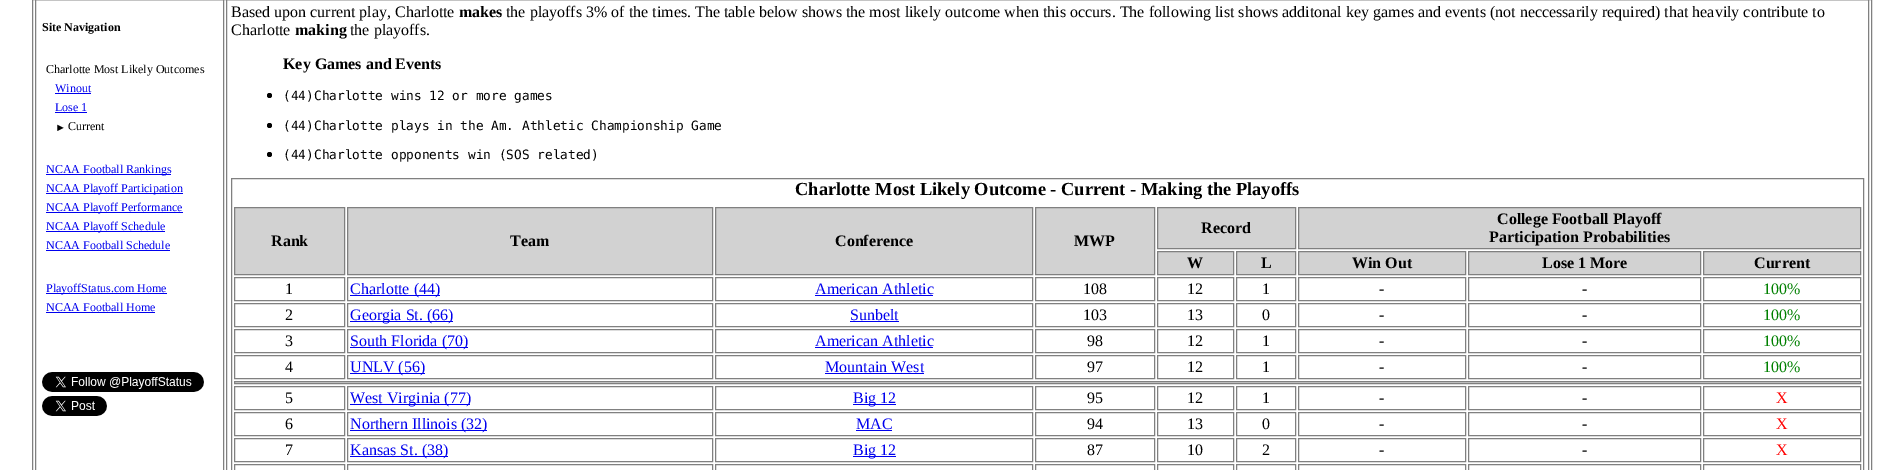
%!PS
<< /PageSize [1904 470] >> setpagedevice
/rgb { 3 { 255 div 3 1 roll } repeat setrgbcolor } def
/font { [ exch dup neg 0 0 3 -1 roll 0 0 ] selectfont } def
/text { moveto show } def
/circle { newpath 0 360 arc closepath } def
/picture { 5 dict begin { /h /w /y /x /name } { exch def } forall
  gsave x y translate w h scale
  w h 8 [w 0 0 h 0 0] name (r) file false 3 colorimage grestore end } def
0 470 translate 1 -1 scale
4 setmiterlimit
255 255 255 rgb
0 0 1904 470 rectfill
128 128 128 rgb
32.5 -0.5 1839 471 rectstroke
35.5 -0.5 188 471 rectstroke
0 0 238 rgb
55 93 36 1 rectfill
55 112 32 1 rectfill
46 174 125 1 rectfill
46 193 137 1 rectfill
46 212 137 1 rectfill
46 231 119 1 rectfill
46 250 124 1 rectfill
46 293 121 1 rectfill
46 312 109 1 rectfill
(img_01.rgb) 42 372 162 20 picture
(img_02.rgb) 42 396 65 20 picture
128 128 128 rgb
226.5 -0.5 1642 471 rectstroke
0 0 0 rgb
269.5 95.5 2.5 circle fill
269.5 125.5 2.5 circle fill
269.5 154.5 2.5 circle fill
128 128 128 rgb
231.5 178.5 1632 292 rectstroke
210 210 210 rgb
1157.5 207.5 moveto 138 0 rlineto 0 41 rlineto -138 0 rlineto closepath gsave fill grestore
128 128 128 rgb
stroke
210 210 210 rgb
1298.5 207.5 moveto 562 0 rlineto 0 41 rlineto -562 0 rlineto closepath gsave fill grestore
128 128 128 rgb
stroke
210 210 210 rgb
234.5 207.5 moveto 110 0 rlineto 0 67 rlineto -110 0 rlineto closepath gsave fill grestore
128 128 128 rgb
stroke
210 210 210 rgb
347.5 207.5 moveto 365 0 rlineto 0 67 rlineto -365 0 rlineto closepath gsave fill grestore
128 128 128 rgb
stroke
210 210 210 rgb
715.5 207.5 moveto 317 0 rlineto 0 67 rlineto -317 0 rlineto closepath gsave fill grestore
128 128 128 rgb
stroke
210 210 210 rgb
1035.5 207.5 moveto 119 0 rlineto 0 67 rlineto -119 0 rlineto closepath gsave fill grestore
128 128 128 rgb
stroke
210 210 210 rgb
1157.5 251.5 moveto 76 0 rlineto 0 23 rlineto -76 0 rlineto closepath gsave fill grestore
128 128 128 rgb
stroke
210 210 210 rgb
1236.5 251.5 moveto 59 0 rlineto 0 23 rlineto -59 0 rlineto closepath gsave fill grestore
128 128 128 rgb
stroke
210 210 210 rgb
1298.5 251.5 moveto 167 0 rlineto 0 23 rlineto -167 0 rlineto closepath gsave fill grestore
128 128 128 rgb
stroke
210 210 210 rgb
1468.5 251.5 moveto 232 0 rlineto 0 23 rlineto -232 0 rlineto closepath gsave fill grestore
128 128 128 rgb
stroke
210 210 210 rgb
1703.5 251.5 moveto 157 0 rlineto 0 23 rlineto -157 0 rlineto closepath gsave fill grestore
128 128 128 rgb
stroke
234.5 277.5 110 23 rectstroke
347.5 277.5 365 23 rectstroke
0 0 238 rgb
350 295 90 1 rectfill
128 128 128 rgb
715.5 277.5 317 23 rectstroke
0 0 238 rgb
815 295 118 1 rectfill
128 128 128 rgb
1035.5 277.5 119 23 rectstroke
1157.5 277.5 76 23 rectstroke
1236.5 277.5 59 23 rectstroke
1298.5 277.5 167 23 rectstroke
1468.5 277.5 232 23 rectstroke
1703.5 277.5 157 23 rectstroke
234.5 303.5 110 23 rectstroke
347.5 303.5 365 23 rectstroke
0 0 238 rgb
350 321 103 1 rectfill
128 128 128 rgb
715.5 303.5 317 23 rectstroke
0 0 238 rgb
850 321 49 1 rectfill
128 128 128 rgb
1035.5 303.5 119 23 rectstroke
1157.5 303.5 76 23 rectstroke
1236.5 303.5 59 23 rectstroke
1298.5 303.5 167 23 rectstroke
1468.5 303.5 232 23 rectstroke
1703.5 303.5 157 23 rectstroke
234.5 329.5 110 23 rectstroke
347.5 329.5 365 23 rectstroke
0 0 238 rgb
350 347 118 1 rectfill
128 128 128 rgb
715.5 329.5 317 23 rectstroke
0 0 238 rgb
815 347 118 1 rectfill
128 128 128 rgb
1035.5 329.5 119 23 rectstroke
1157.5 329.5 76 23 rectstroke
1236.5 329.5 59 23 rectstroke
1298.5 329.5 167 23 rectstroke
1468.5 329.5 232 23 rectstroke
1703.5 329.5 157 23 rectstroke
234.5 355.5 110 23 rectstroke
347.5 355.5 365 23 rectstroke
0 0 238 rgb
350 373 75 1 rectfill
128 128 128 rgb
715.5 355.5 317 23 rectstroke
0 0 238 rgb
825 373 99 1 rectfill
128 128 128 rgb
1035.5 355.5 119 23 rectstroke
1157.5 355.5 76 23 rectstroke
1236.5 355.5 59 23 rectstroke
1298.5 355.5 167 23 rectstroke
1468.5 355.5 232 23 rectstroke
1703.5 355.5 157 23 rectstroke
210 210 210 rgb
234.5 381.5 moveto 1626 0 rlineto 0 2 rlineto -1626 0 rlineto closepath gsave fill grestore
128 128 128 rgb
stroke
234.5 386.5 110 23 rectstroke
347.5 386.5 365 23 rectstroke
0 0 238 rgb
350 404 120 1 rectfill
128 128 128 rgb
715.5 386.5 317 23 rectstroke
0 0 238 rgb
853 404 43 1 rectfill
128 128 128 rgb
1035.5 386.5 119 23 rectstroke
1157.5 386.5 76 23 rectstroke
1236.5 386.5 59 23 rectstroke
1298.5 386.5 167 23 rectstroke
1468.5 386.5 232 23 rectstroke
1703.5 386.5 157 23 rectstroke
234.5 412.5 110 23 rectstroke
347.5 412.5 365 23 rectstroke
0 0 238 rgb
350 430 137 1 rectfill
128 128 128 rgb
715.5 412.5 317 23 rectstroke
0 0 238 rgb
856 430 36 1 rectfill
128 128 128 rgb
1035.5 412.5 119 23 rectstroke
1157.5 412.5 76 23 rectstroke
1236.5 412.5 59 23 rectstroke
1298.5 412.5 167 23 rectstroke
1468.5 412.5 232 23 rectstroke
1703.5 412.5 157 23 rectstroke
234.5 438.5 110 23 rectstroke
347.5 438.5 365 23 rectstroke
0 0 238 rgb
350 456 98 1 rectfill
128 128 128 rgb
715.5 438.5 317 23 rectstroke
0 0 238 rgb
853 456 43 1 rectfill
128 128 128 rgb
1035.5 438.5 119 23 rectstroke
1157.5 438.5 76 23 rectstroke
1236.5 438.5 59 23 rectstroke
1298.5 438.5 167 23 rectstroke
1468.5 438.5 232 23 rectstroke
1703.5 438.5 157 23 rectstroke
234.5 464.5 110 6 rectstroke
347.5 464.5 365 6 rectstroke
715.5 464.5 317 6 rectstroke
1035.5 464.5 119 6 rectstroke
1157.5 464.5 76 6 rectstroke
1236.5 464.5 59 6 rectstroke
1298.5 464.5 167 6 rectstroke
1468.5 464.5 232 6 rectstroke
1703.5 464.5 157 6 rectstroke
/LiberationSerif-Bold 12 font
0 0 0 rgb
(Site Navigation) 42 31 text
/LiberationSerif-Regular 12 font
(Charlotte Most Likely Outcomes) 46 73 text
0 0 238 rgb
(Winout) 55 92 text
(Lose 1) 55 111 text
/LiberationSerif-Regular 11 font
0 0 0 rgb
(►) 55 131 text
/LiberationSerif-Regular 12 font
(Current) 68 130 text
0 0 238 rgb
(NCAA Football Rankings) 46 173 text
(NCAA Playoff Participation) 46 192 text
(NCAA Playoff Performance) 46 211 text
(NCAA Playoff Schedule) 46 230 text
(NCAA Football Schedule) 46 249 text
(PlayoffStatus.com Home) 46 292 text
(NCAA Football Home) 46 311 text
/LiberationSerif-Regular 16 font
0 0 0 rgb
(Based upon current play, Charlotte) 231 17 text
/LiberationSerif-Bold 16 font
(makes) 459 17 text
/LiberationSerif-Regular 16 font
(the playoffs 3% of the times. The table below shows the most likely outcome when this occurs. The following list shows additonal key games and events \(not neccessarily required\) that heavily contribute to) 506 17 text
(Charlotte) 231 35 text
/LiberationSerif-Bold 16 font
(making) 295 35 text
/LiberationSerif-Regular 16 font
(the playoffs.) 350 35 text
/LiberationSerif-Bold 16 font
(Key Games and Events) 283 69 text
/DejaVuSansMono-Regular 12.8 font
(\(44\)Charlotte wins 12 or more games) 283 100 text
(\(44\)Charlotte plays in the Am. Athletic Championship Game) 283 130 text
(\(44\)Charlotte opponents win \(SOS related\)) 283 159 text
/LiberationSerif-Bold 18.4 font
(Charlotte Most Likely Outcome - Current - Making the Playoffs) 795 195 text
/LiberationSerif-Bold 16 font
(Record) 1201 233 text
(College Football Playoff) 1497 224 text
(Participation Probabilities) 1489 242 text
(Rank) 271 246 text
(Team) 510 246 text
(Conference) 835 246 text
(MWP) 1074 246 text
(W) 1187 268 text
(L) 1261 268 text
(Win Out) 1352 268 text
(Lose 1 More) 1542 268 text
(Current) 1754 268 text
/LiberationSerif-Regular 16 font
(1) 285 294 text
0 0 238 rgb
(Charlotte \(44\)) 350 294 text
(American Athletic) 815 294 text
0 0 0 rgb
(108) 1083 294 text
(12) 1187 294 text
(1) 1262 294 text
(-) 1379 294 text
(-) 1582 294 text
0 128 0 rgb
(100%) 1763 294 text
0 0 0 rgb
(2) 285 320 text
0 0 238 rgb
(Georgia St. \(66\)) 350 320 text
(Sunbelt) 850 320 text
0 0 0 rgb
(103) 1083 320 text
(13) 1187 320 text
(0) 1262 320 text
(-) 1379 320 text
(-) 1582 320 text
0 128 0 rgb
(100%) 1763 320 text
0 0 0 rgb
(3) 285 346 text
0 0 238 rgb
(South Florida \(70\)) 350 346 text
(American Athletic) 815 346 text
0 0 0 rgb
(98) 1087 346 text
(12) 1187 346 text
(1) 1262 346 text
(-) 1379 346 text
(-) 1582 346 text
0 128 0 rgb
(100%) 1763 346 text
0 0 0 rgb
(4) 285 372 text
0 0 238 rgb
(UNLV \(56\)) 350 372 text
(Mountain West) 825 372 text
0 0 0 rgb
(97) 1087 372 text
(12) 1187 372 text
(1) 1262 372 text
(-) 1379 372 text
(-) 1582 372 text
0 128 0 rgb
(100%) 1763 372 text
0 0 0 rgb
(5) 285 403 text
0 0 238 rgb
(West Virginia \(77\)) 350 403 text
(Big 12) 853 403 text
0 0 0 rgb
(95) 1087 403 text
(12) 1187 403 text
(1) 1262 403 text
(-) 1379 403 text
(-) 1582 403 text
255 0 0 rgb
(X) 1776 403 text
0 0 0 rgb
(6) 285 429 text
0 0 238 rgb
(Northern Illinois \(32\)) 350 429 text
(MAC) 856 429 text
0 0 0 rgb
(94) 1087 429 text
(13) 1187 429 text
(0) 1262 429 text
(-) 1379 429 text
(-) 1582 429 text
255 0 0 rgb
(X) 1776 429 text
0 0 0 rgb
(7) 285 455 text
0 0 238 rgb
(Kansas St. \(38\)) 350 455 text
(Big 12) 853 455 text
0 0 0 rgb
(87) 1087 455 text
(10) 1187 455 text
(2) 1262 455 text
(-) 1379 455 text
(-) 1582 455 text
255 0 0 rgb
(X) 1776 455 text
showpage
